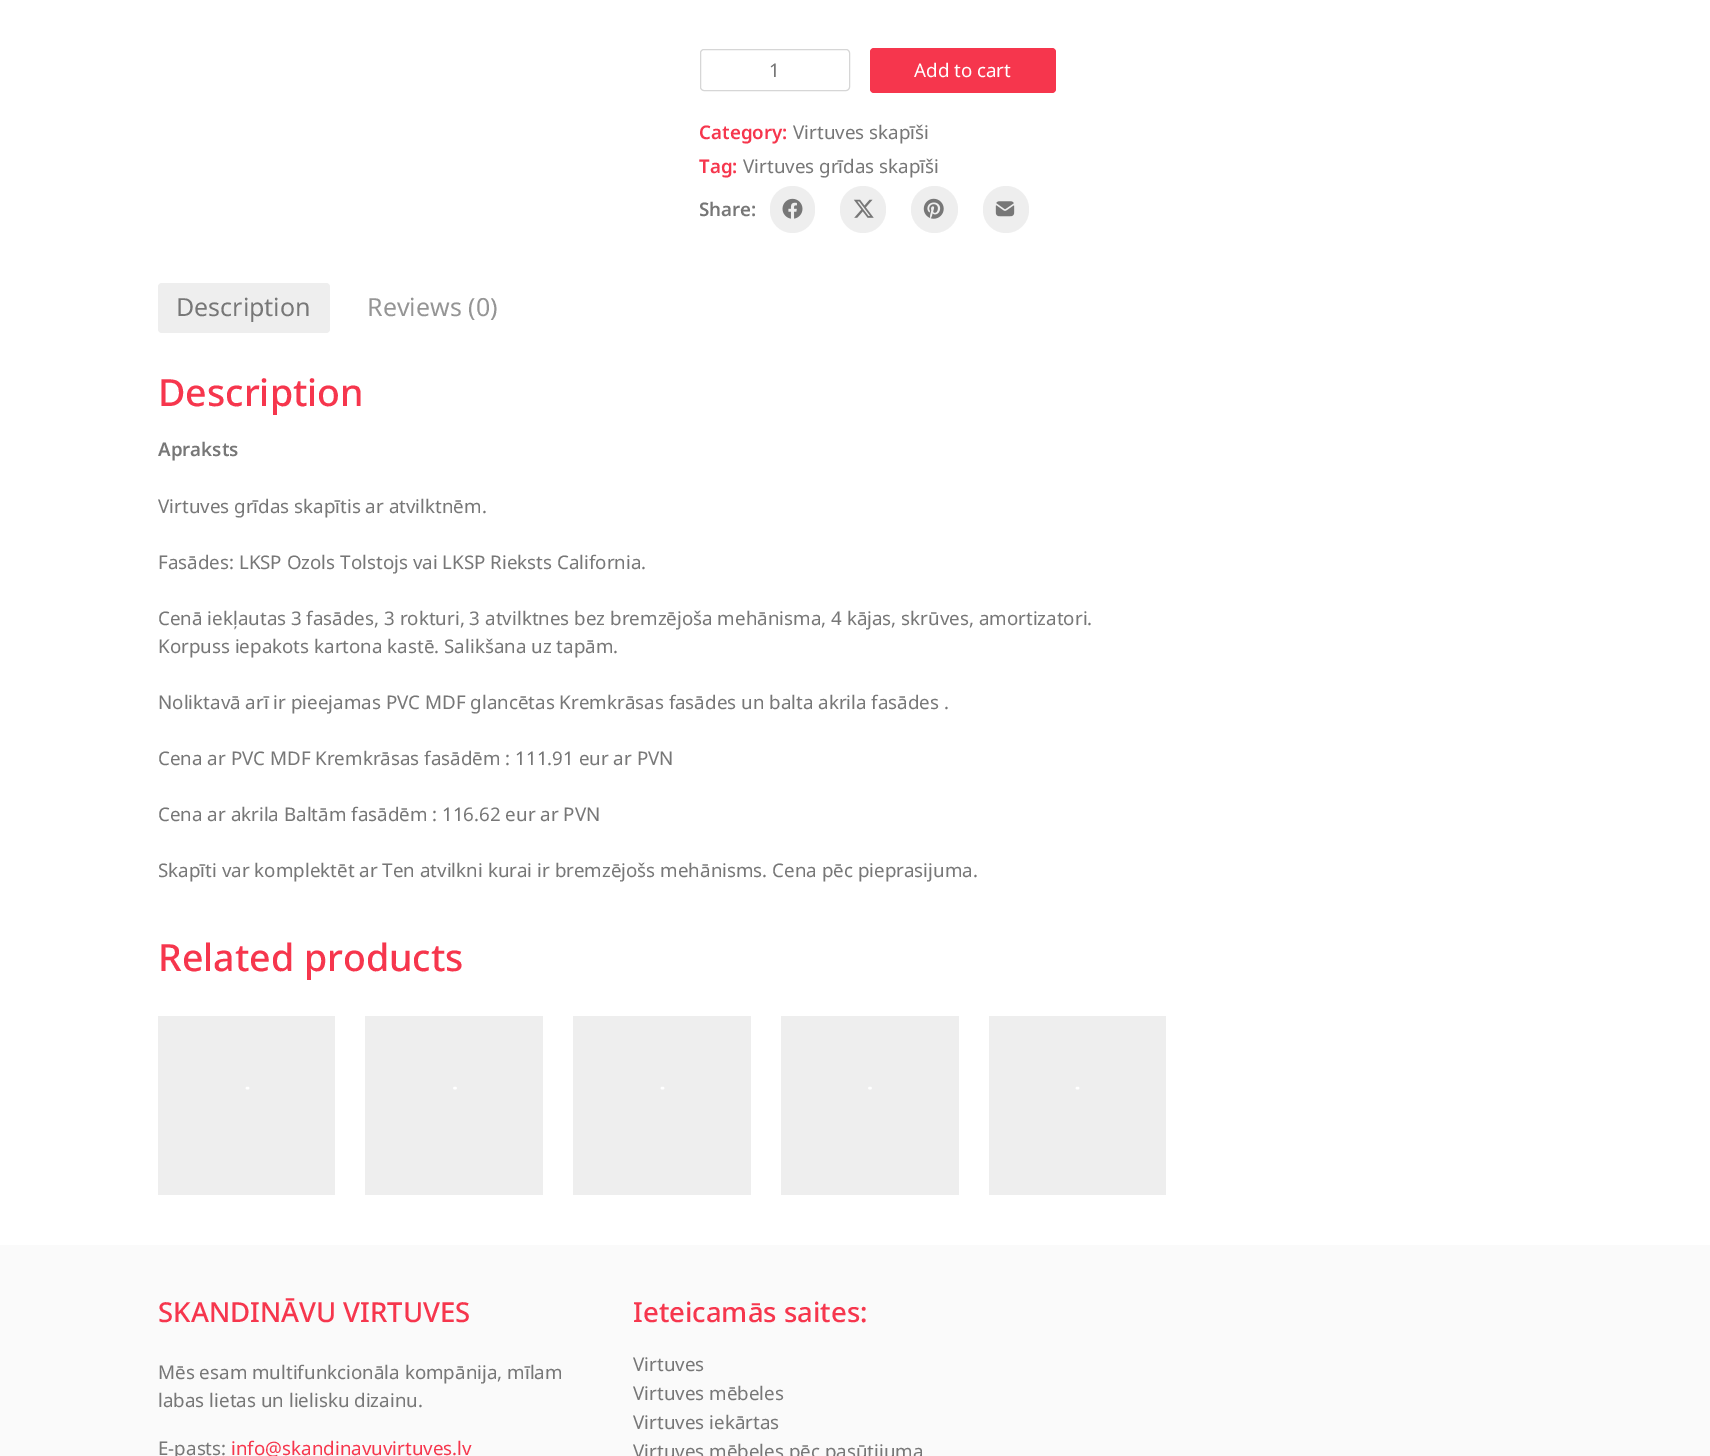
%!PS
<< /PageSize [1710 1456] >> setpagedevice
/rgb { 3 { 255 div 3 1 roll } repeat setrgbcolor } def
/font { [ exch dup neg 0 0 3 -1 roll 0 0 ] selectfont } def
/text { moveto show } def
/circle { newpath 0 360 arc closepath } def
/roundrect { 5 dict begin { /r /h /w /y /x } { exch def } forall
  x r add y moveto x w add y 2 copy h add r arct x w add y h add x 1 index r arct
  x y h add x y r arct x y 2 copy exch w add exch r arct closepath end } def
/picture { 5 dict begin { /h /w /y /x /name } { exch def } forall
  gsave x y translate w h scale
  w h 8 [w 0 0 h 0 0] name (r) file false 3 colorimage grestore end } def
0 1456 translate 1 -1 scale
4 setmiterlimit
255 255 255 rgb
0 0 1710 1456 rectfill
214 214 214 rgb
700.5 49.5 149 41 3.5 roundrect stroke
246 54 77 rgb
870 48 186 45 4 roundrect fill
238 238 238 rgb
770 186 45 47 22.5 roundrect fill
(img_01.rgb) 782 198 21 21 picture
840 186 46 47 23 roundrect fill
(img_02.rgb) 853 199 21 19 picture
934.5 209.5 23.5 circle fill
(img_03.rgb) 923 198 21 21 picture
983 186 46 47 23 roundrect fill
(img_04.rgb) 995 201 20 16 picture
158 283 172 50 4 roundrect fill
158 1016 177 179 rectfill
255 255 255 rgb
2.6 setlinewidth
1 setlinecap
247 1088 moveto 1 0 rlineto stroke
238 238 238 rgb
365 1016 178 179 rectfill
255 255 255 rgb
454.5 1088 moveto 1 0 rlineto stroke
238 238 238 rgb
573 1016 178 179 rectfill
255 255 255 rgb
662 1088 moveto 1 0 rlineto stroke
238 238 238 rgb
781 1016 178 179 rectfill
255 255 255 rgb
869.5 1088 moveto 1 0 rlineto stroke
238 238 238 rgb
989 1016 177 179 rectfill
255 255 255 rgb
1077 1088 moveto 1 0 rlineto stroke
250 250 250 rgb
0 1245 1710 211 rectfill
/NotoSans-Regular 18.75 font
119 119 119 rgb
(1) 769 77 text
255 255 255 rgb
(Add to cart) 914 77 text
/NotoSans-SemiBold 18.75 font
246 54 77 rgb
(Category:) 699 139 text
/NotoSans-Regular 18.75 font
119 119 119 rgb
(Virtuves skapīši) 793 139 text
/NotoSans-SemiBold 18.75 font
246 54 77 rgb
(Tag:) 699 173 text
/NotoSans-Regular 18.75 font
119 119 119 rgb
(Virtuves grīdas skapīši) 743 173 text
/NotoSans-SemiBold 18.75 font
(Share:) 699 216 text
/NotoSans-Regular 25 font
(Description) 176 316 text
149 149 149 rgb
(Reviews \(0\)) 367 316 text
/NotoSans-Medium 37.5 font
246 54 77 rgb
(Description) 158 406 text
/NotoSans-SemiBold 18.75 font
119 119 119 rgb
(Apraksts) 158 456 text
/NotoSans-Regular 18.75 font
(Virtuves grīdas skapītis ar atvilktnēm.) 158 513 text
(Fasādes: LKSP Ozols Tolstojs vai LKSP Rieksts California.) 158 569 text
(Cenā iekļautas 3 fasādes, 3 rokturi, 3 atvilktnes bez bremzējoša mehānisma, 4 kājas, skrūves, amortizatori.) 158 625 text
(Korpuss iepakots kartona kastē. Salikšana uz tapām.) 158 653 text
(Noliktavā arī ir pieejamas PVC MDF glancētas Kremkrāsas fasādes un balta akrila fasādes .) 158 709 text
(Cena ar PVC MDF Kremkrāsas fasādēm : 111.91 eur ar PVN) 158 765 text
(Cena ar akrila Baltām fasādēm : 116.62 eur ar PVN) 158 821 text
(Skapīti var komplektēt ar Ten atvilkni kurai ir bremzējošs mehānisms. Cena pēc pieprasijuma.) 158 877 text
/NotoSans-Medium 37.5 font
246 54 77 rgb
(Related products) 158 971 text
/NotoSans-Medium 27.5 font
(SKANDINĀVU VIRTUVES) 158 1322 text
/NotoSans-Regular 18.75 font
119 119 119 rgb
(Mēs esam multifunkcionāla kompānija, mīlam) 158 1379 text
(labas lietas un lielisku dizainu.) 158 1407 text
(E-pasts:) 158 1455 text
246 54 77 rgb
(info@skandinavuvirtuves.lv) 231 1455 text
/NotoSans-Medium 27.5 font
(Ieteicamās saites:) 633 1322 text
/NotoSans-Regular 18.75 font
119 119 119 rgb
(Virtuves) 633 1371 text
(Virtuves mēbeles) 633 1400 text
(Virtuves iekārtas) 633 1429 text
(Virtuves mēbeles pēc pasūtijuma) 633 1458 text
showpage
